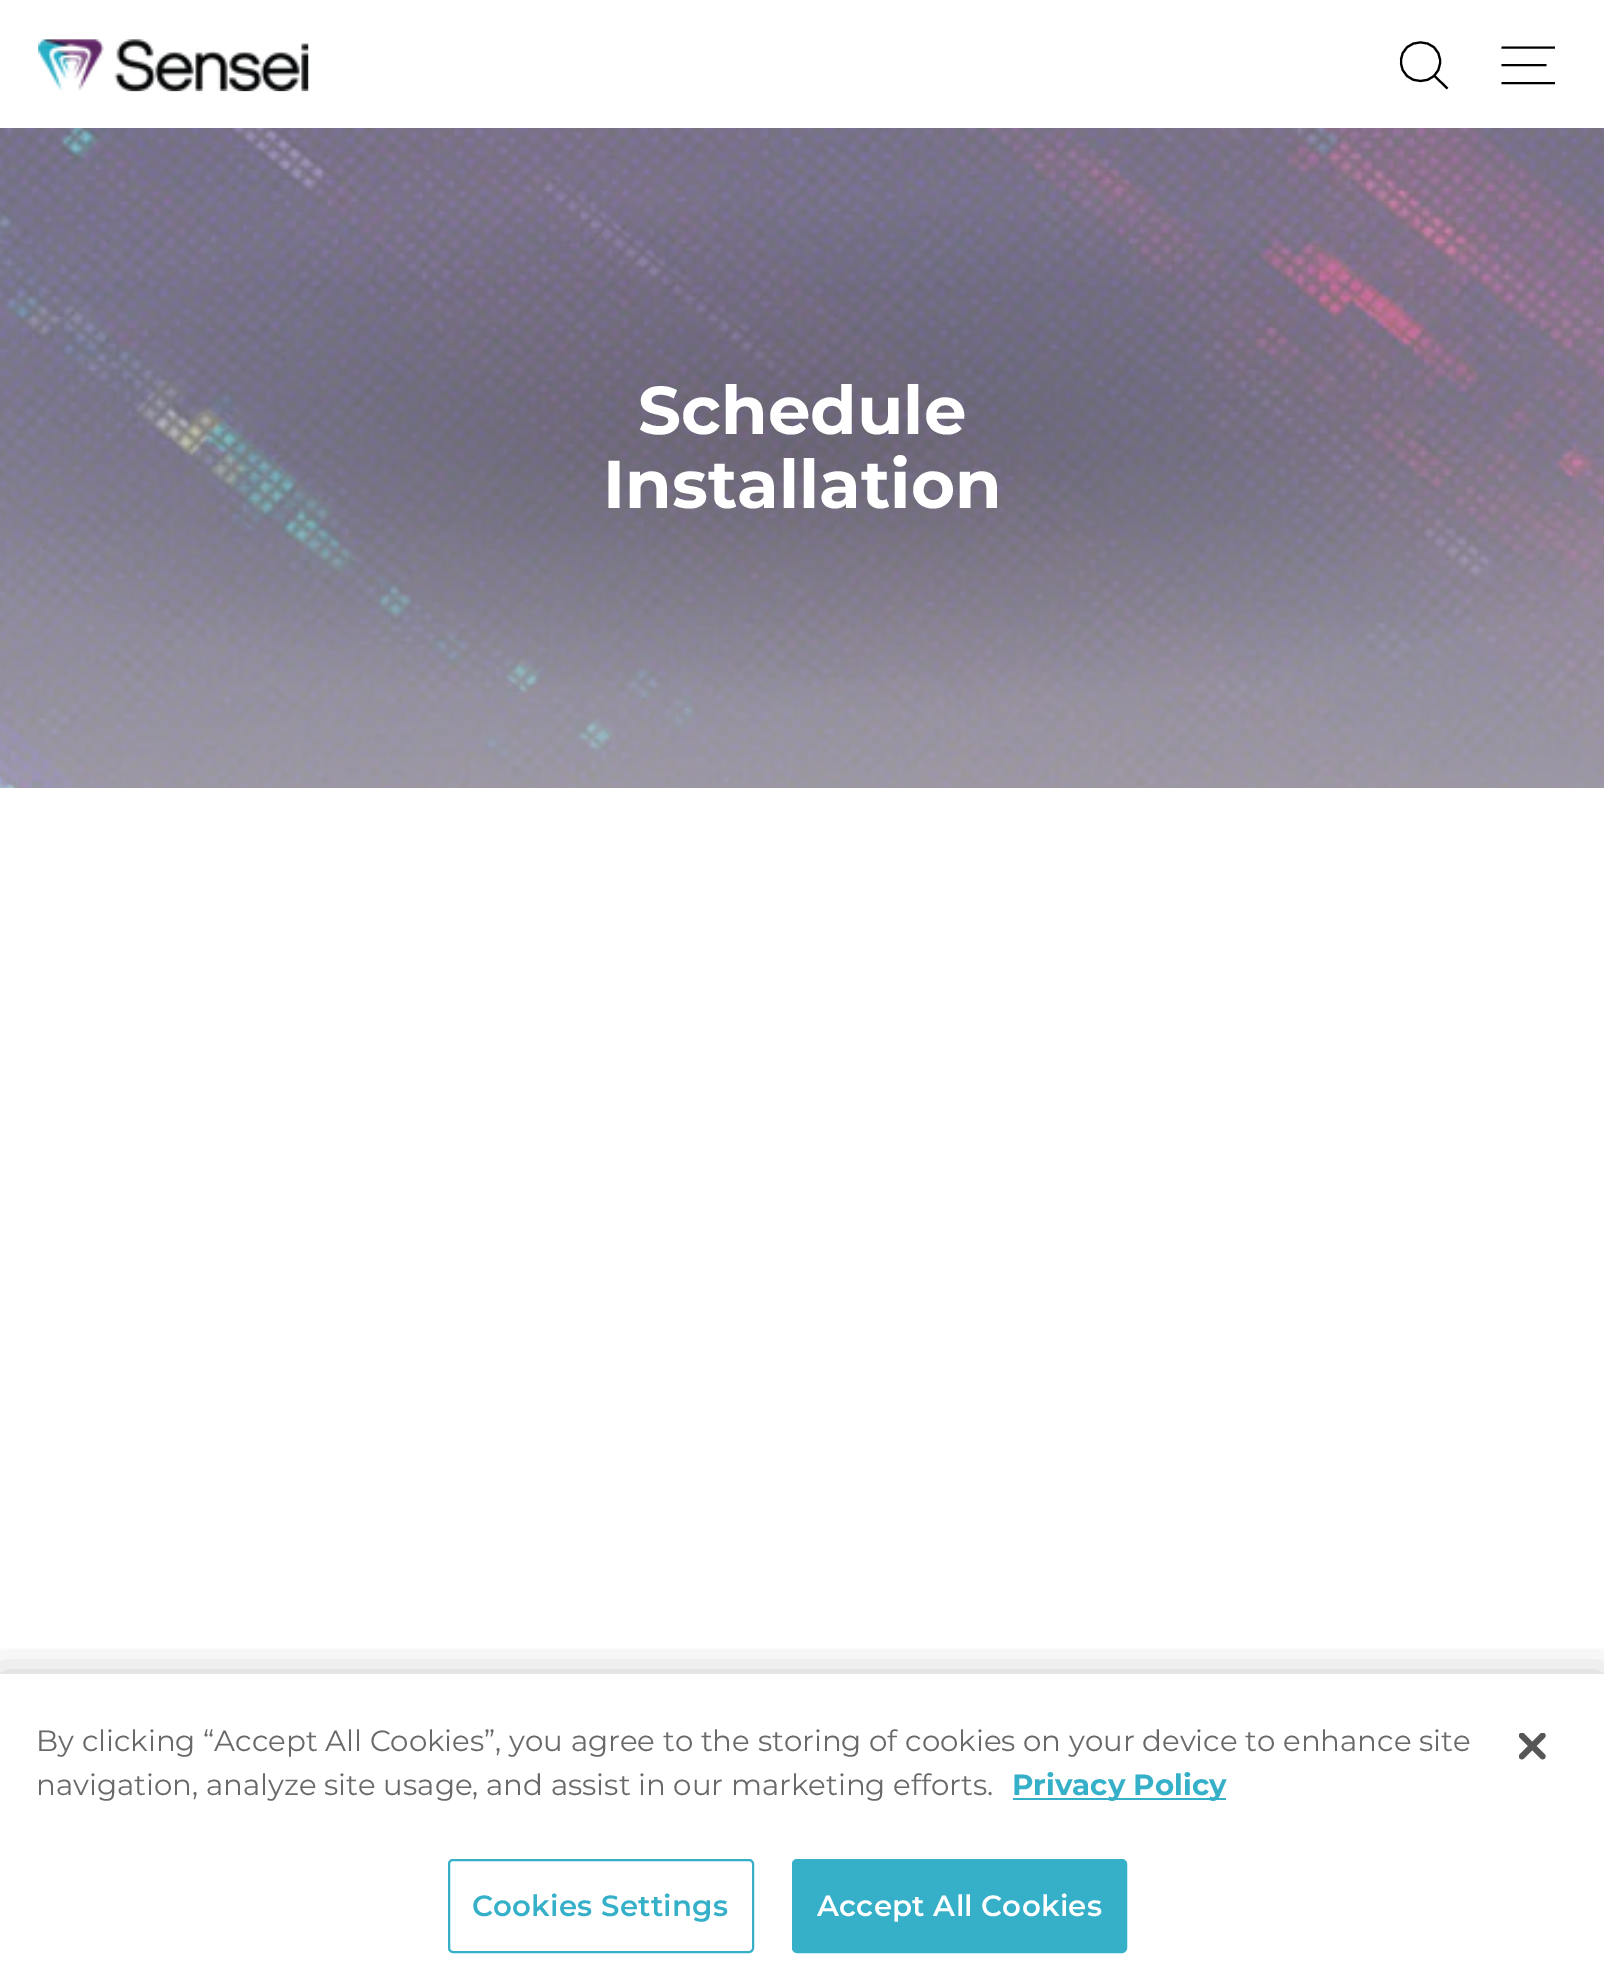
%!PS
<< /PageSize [1604 1988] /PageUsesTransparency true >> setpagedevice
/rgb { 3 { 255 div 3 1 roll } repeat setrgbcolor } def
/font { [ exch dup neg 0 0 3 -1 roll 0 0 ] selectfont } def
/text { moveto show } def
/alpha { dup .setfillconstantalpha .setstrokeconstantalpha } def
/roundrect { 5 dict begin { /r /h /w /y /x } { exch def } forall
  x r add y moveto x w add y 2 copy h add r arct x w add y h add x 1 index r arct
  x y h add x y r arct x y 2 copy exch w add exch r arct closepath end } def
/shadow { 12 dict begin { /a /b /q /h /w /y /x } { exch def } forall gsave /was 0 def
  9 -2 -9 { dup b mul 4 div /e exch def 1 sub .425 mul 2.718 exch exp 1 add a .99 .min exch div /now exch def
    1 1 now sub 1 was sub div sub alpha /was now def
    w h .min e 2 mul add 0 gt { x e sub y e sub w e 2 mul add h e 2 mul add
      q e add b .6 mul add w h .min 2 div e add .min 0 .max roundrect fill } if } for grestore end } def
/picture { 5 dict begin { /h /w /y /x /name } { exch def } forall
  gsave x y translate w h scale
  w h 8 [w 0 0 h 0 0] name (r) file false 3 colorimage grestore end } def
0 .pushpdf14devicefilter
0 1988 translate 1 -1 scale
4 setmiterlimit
255 255 255 rgb
0 0 1604 1988 rectfill
(img_01.rgb) 38 39 271 53 picture
0 0 0 rgb
2.1 setlinewidth
1440 61.5 moveto 0 26 -39 26 -39 0 rcurveto 0 -25.5 39 -25.5 39 0 rcurveto closepath 1447.5 88.5 moveto -13 -12.5 rlineto stroke
1501.5 47.5 moveto 53.5 0 rlineto 1501.5 65 moveto 45 0 rlineto 1501.5 83 moveto 53.5 0 rlineto stroke
(img_02.rgb) 0 128 1604 660 picture
gsave
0 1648 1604 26 rectclip
0 1674 1604 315 0 20 0.2 shadow
grestore
54 176 201 rgb
1013 1798 213 2 rectfill
2 setlinewidth
449 1860 304 92 4 roundrect stroke
793 1860 333 92 4 roundrect gsave fill grestore
stroke
(img_03.rgb) 1519 1733 27 27 picture
/Montserrat-Bold 67.5 font
255 255 255 rgb
(Schedule) 638 434 text
(Installation) 603 508 text
/Montserrat-Thin 29.25 font
105 105 105 rgb
(By clicking “Accept All Cookies”, you agree to the storing of cookies on your device to enhance site) 36 1751 text
(navigation, analyze site usage, and assist in our marketing efforts.) 36 1795 text
/Montserrat-Bold 29.25 font
54 176 201 rgb
(Privacy Policy) 1012 1795 text
/Montserrat-SemiBold 29.25 font
472 1916 moveto 0.25 0 (Cookies Settings) ashow
255 255 255 rgb
817 1916 moveto 0.25 0 (Accept All Cookies) ashow
.poppdf14devicefilter showpage
